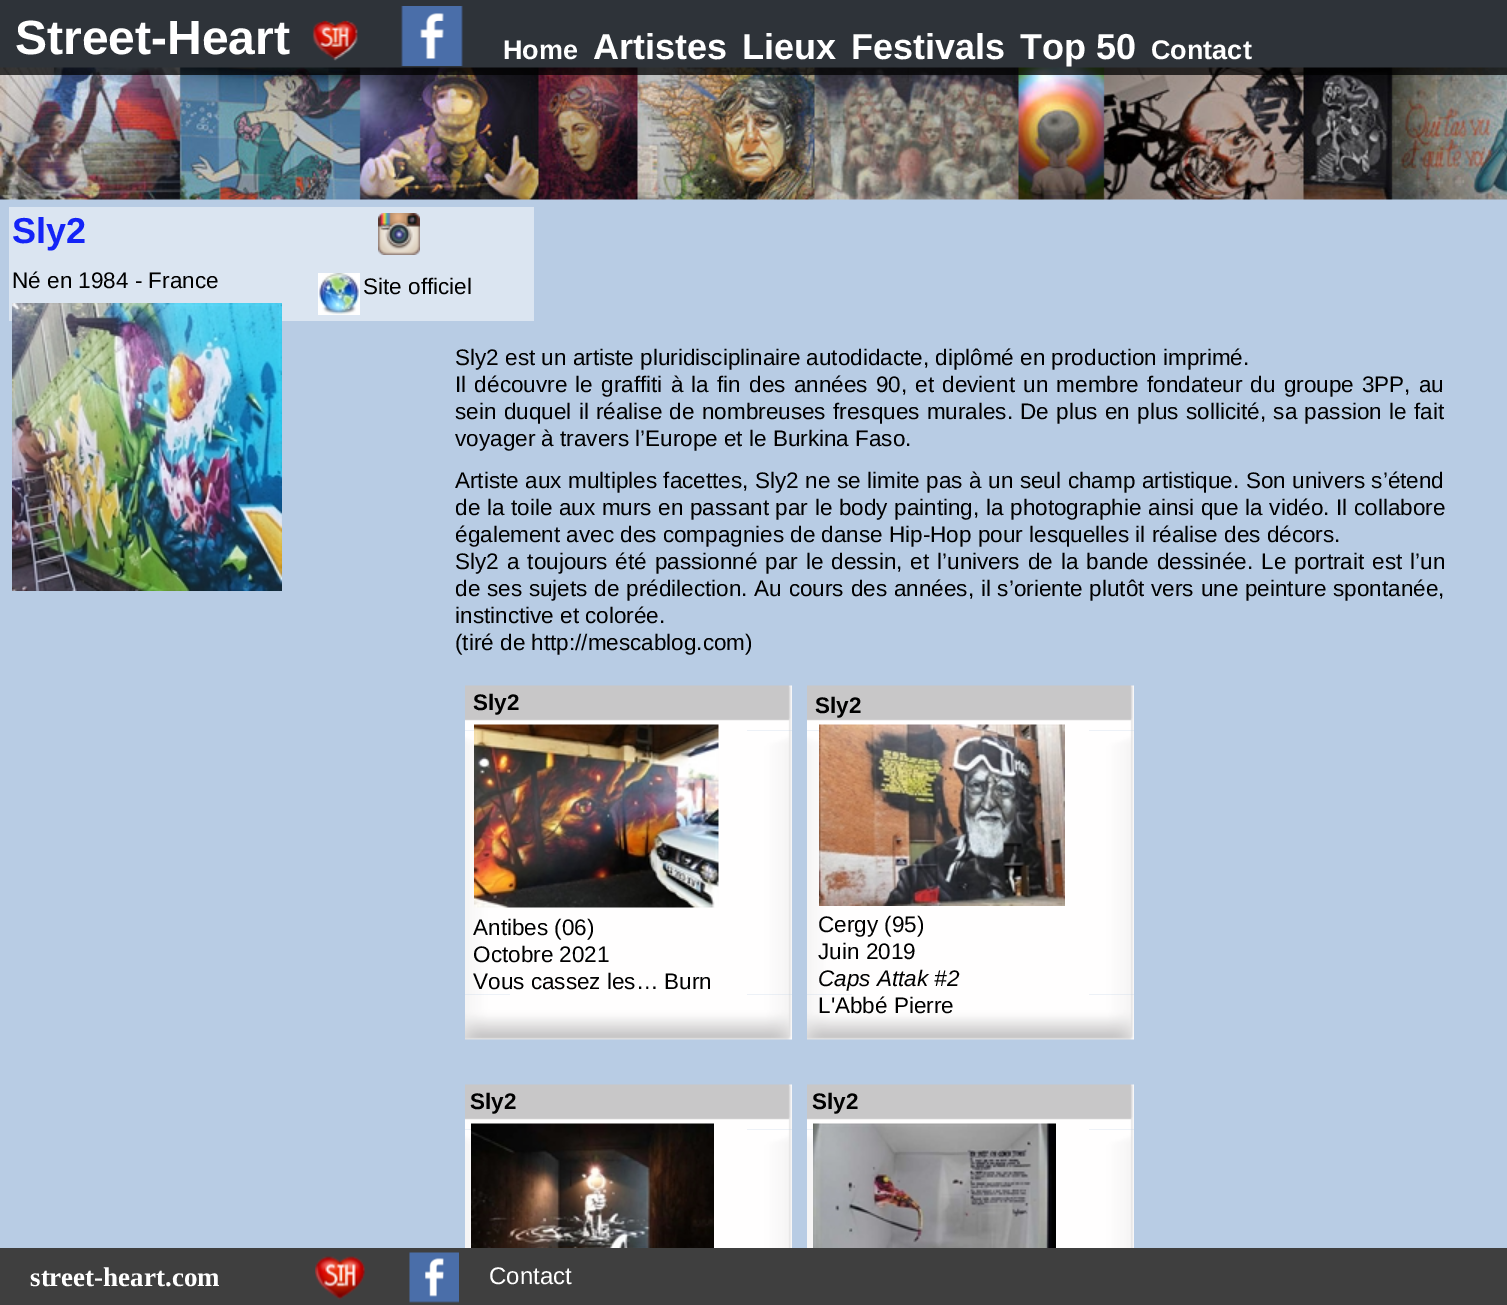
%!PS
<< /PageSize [1507 1305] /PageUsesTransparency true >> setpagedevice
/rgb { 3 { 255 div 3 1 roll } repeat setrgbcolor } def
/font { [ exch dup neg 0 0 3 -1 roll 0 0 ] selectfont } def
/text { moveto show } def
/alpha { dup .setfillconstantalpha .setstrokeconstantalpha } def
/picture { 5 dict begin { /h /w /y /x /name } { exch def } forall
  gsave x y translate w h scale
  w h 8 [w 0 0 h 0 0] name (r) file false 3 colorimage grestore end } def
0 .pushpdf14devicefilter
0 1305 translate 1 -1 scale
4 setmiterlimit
184 204 228 rgb
0 0 1507 1305 rectfill
(img_03.rgb) 0 67 1507 133 picture
0.75 alpha
0 0 0 rgb
0 0 1507 75 rectfill
1 alpha
(img_01.rgb) 312 20 46 41 picture
(img_02.rgb) 401 6 62 60 picture
219 229 241 rgb
9 207 525 114 rectfill
(img_04.rgb) 378 213 42 42 picture
(img_05.rgb) 318 273 42 42 picture
(img_06.rgb) 12 303 270 288 picture
(img_07.rgb) 465 685 45 46 picture
(img_08.rgb) 510 685 237 45 picture
(img_09.rgb) 747 685 45 46 picture
(img_10.rgb) 465 730 45 265 picture
255 254 254 rgb
510 730 237 265 rectfill
(img_11.rgb) 747 730 45 265 picture
(img_12.rgb) 465 994 45 46 picture
(img_13.rgb) 510 995 237 45 picture
(img_14.rgb) 747 994 45 46 picture
(img_15.rgb) 474 724 245 184 picture
(img_07.rgb) 807 685 45 46 picture
(img_08.rgb) 852 685 237 45 picture
(img_16.rgb) 1089 685 45 46 picture
(img_17.rgb) 807 730 45 265 picture
852 730 237 265 rectfill
(img_18.rgb) 1089 730 45 265 picture
(img_19.rgb) 807 994 45 46 picture
(img_13.rgb) 852 995 237 45 picture
(img_20.rgb) 1089 994 45 46 picture
(img_21.rgb) 819 724 246 182 picture
(img_07.rgb) 465 1084 45 46 picture
(img_08.rgb) 510 1084 237 45 picture
(img_09.rgb) 747 1084 45 46 picture
(img_22.rgb) 465 1129 6 119 picture
714 1129 33 119 rectfill
(img_23.rgb) 747 1129 45 119 picture
(img_24.rgb) 471 1123 243 125 picture
(img_07.rgb) 807 1084 45 46 picture
(img_08.rgb) 852 1084 237 45 picture
(img_16.rgb) 1089 1084 45 46 picture
(img_25.rgb) 807 1129 6 119 picture
1056 1129 33 119 rectfill
(img_26.rgb) 1089 1129 45 119 picture
(img_27.rgb) 813 1123 243 125 picture
63 63 63 rgb
0 1248 1507 57 rectfill
(img_28.rgb) 315 1256 50 44 picture
(img_29.rgb) 409 1252 50 51 picture
/LiberationSans-Bold 48 font
255 255 255 rgb
(Street-Heart) 15 54 text
/LiberationSans-Bold 27 font
(Home) 503 59 text
/LiberationSans-Bold 36 font
(Artistes) 593 59 text
(Lieux) 742 59 text
(Festivals) 851 59 text
(Top 50) 1020 59 text
/LiberationSans-Bold 27 font
(Contact) 1151 59 text
/LiberationSans-Bold 36 font
20 36 247 rgb
(Sly2) 12 243 text
/LiberationSans-Regular 22.5 font
0 0 0 rgb
(Né en 1984 - France) 12 288 text
(Site officiel) 363 294 text
(Sly2 est un artiste pluridisciplinaire autodidacte, diplômé en production imprimé.) 455 365 text
455 392 moveto 2 0 32 (Il découvre le graffiti à la fin des années 90, et devient un membre fondateur du groupe 3PP, au) widthshow
455 419 moveto 1.1 0 32 (sein duquel il réalise de nombreuses fresques murales. De plus en plus sollicité, sa passion le fait) widthshow
(voyager à travers l’Europe et le Burkina Faso.) 455 446 text
455 488 moveto 0.3 0 32 (Artiste aux multiples facettes, Sly2 ne se limite pas à un seul champ artistique. Son univers s’étend) widthshow
455 515 moveto 0.4 0 32 (de la toile aux murs en passant par le body painting, la photographie ainsi que la vidéo. Il collabore) widthshow
(également avec des compagnies de danse Hip-Hop pour lesquelles il réalise des décors.) 455 542 text
455 569 moveto 1.75 0 32 (Sly2 a toujours été passionné par le dessin, et l’univers de la bande dessinée. Le portrait est l’un) widthshow
455 596 moveto 0.6 0 32 (de ses sujets de prédilection. Au cours des années, il s’oriente plutôt vers une peinture spontanée,) widthshow
(instinctive et colorée.) 455 623 text
(\(tiré de http://mescablog.com\)) 455 650 text
/LiberationSans-Bold 22.5 font
(Sly2) 473 710 text
/LiberationSans-Regular 22.5 font
(Antibes \(06\)) 473 935 text
(Octobre 2021) 473 962 text
(Vous cassez les… Burn) 473 989 text
/LiberationSans-Bold 22.5 font
(Sly2) 815 713 text
/LiberationSans-Regular 22.5 font
(Cergy \(95\)) 818 932 text
(Juin 2019) 818 959 text
/LiberationSans-Italic 22.5 font
(Caps Attak #2) 818 986 text
/LiberationSans-Regular 22.5 font
(L'Abbé Pierre) 818 1013 text
/LiberationSans-Bold 22.5 font
(Sly2) 470 1109 text
(Sly2) 812 1109 text
/LiberationSerif-Bold 27 font
255 255 255 rgb
(street-heart.com) 30 1286 text
/LiberationSans-Regular 24 font
(Contact) 489 1284 text
.poppdf14devicefilter showpage
